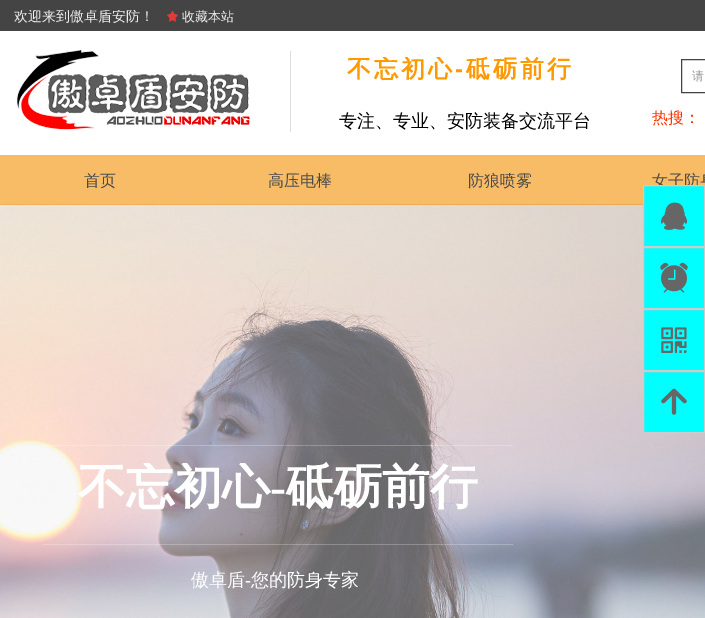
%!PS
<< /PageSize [705 618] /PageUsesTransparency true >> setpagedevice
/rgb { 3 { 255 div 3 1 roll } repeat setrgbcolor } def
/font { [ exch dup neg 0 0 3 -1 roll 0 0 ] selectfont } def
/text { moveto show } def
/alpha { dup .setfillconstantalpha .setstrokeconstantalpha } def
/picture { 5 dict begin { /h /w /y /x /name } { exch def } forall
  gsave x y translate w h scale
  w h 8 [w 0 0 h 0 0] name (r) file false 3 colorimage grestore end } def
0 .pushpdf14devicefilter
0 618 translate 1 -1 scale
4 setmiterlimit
255 255 255 rgb
0 0 705 618 rectfill
68 68 68 rgb
0 0 705 31 rectfill
(img_01.rgb) 167 10 11 12 picture
(img_02.rgb) 16 50 234 80 picture
221 221 221 rgb
290 51 1 81 rectfill
68 68 68 rgb
681.5 59.5 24 33 rectstroke
(img_03.rgb) 0 204 705 414 picture
0.6 alpha
243 142 0 rgb
0 155 705 50 rectfill
0.24 alpha
255 255 255 rgb
43 445 470 1 rectfill
43 544 470 1 rectfill
1 alpha
0 255 255 rgb
643.5 247.5 moveto 61 0 rlineto 0 61 rlineto -61 0 rlineto closepath gsave fill grestore
204 204 204 rgb
stroke
(img_05.rgb) 660 262 28 31 picture
0 255 255 rgb
643.5 309.5 moveto 61 0 rlineto 0 61 rlineto -61 0 rlineto closepath gsave fill grestore
204 204 204 rgb
stroke
(img_06.rgb) 661 327 26 26 picture
0 255 255 rgb
643.5 371.5 moveto 61 0 rlineto 0 61 rlineto -61 0 rlineto closepath gsave fill grestore
204 204 204 rgb
stroke
(img_07.rgb) 661 388 26 27 picture
gsave
14 10 144 16 rectclip
/WenQuanYiZenHei-Medium 14 font
238 238 238 rgb
(欢迎来到傲卓盾安防！) 14 21 text
grestore
/WenQuanYiZenHei-Medium 13 font
238 238 238 rgb
(收藏本站) 182 21 text
gsave
347 57 237 29 rectclip
/WenQuanYiZenHei-Bold 24 font
255 153 0 rgb
347 77 moveto 3 0 (不忘初心) ashow
grestore
/LiberationSans-Bold 24 font
255 153 0 rgb
455 77 moveto 3 0 (-) ashow
/WenQuanYiZenHei-Bold 24 font
466 77 moveto 3 0 (砥砺前行) ashow
/WenQuanYiZenHei-Medium 18 font
0 0 0 rgb
(专注、专业、安防装备交流平台) 339 127 text
/WenQuanYiZenHei-Medium 12 font
153 153 153 rgb
(请) 692 80 text
/WenQuanYiZenHei-Medium 16 font
255 51 0 rgb
(热搜：) 652 123 text
74 74 74 rgb
(首页) 84 186 text
(高压电棒) 268 186 text
(防狼喷雾) 468 186 text
(女子防身) 652 186 text
gsave
48 463 460 64 rectclip
/WenQuanYiZenHei-Bold 48 font
255 255 255 rgb
(不忘初心) 78 503 text
grestore
/LiberationSerif-Bold 48 font
255 255 255 rgb
(-) 270 503 text
/WenQuanYiZenHei-Bold 48 font
(砥砺前行) 286 503 text
/WenQuanYiZenHei-Medium 18 font
(傲卓盾) 191 586 text
/LiberationSerif-Regular 18 font
(-) 245 586 text
/WenQuanYiZenHei-Medium 18 font
(您的防身专家) 251 586 text
0 255 255 rgb
643.5 185.5 moveto 61 0 rlineto 0 61 rlineto -61 0 rlineto closepath gsave fill grestore
204 204 204 rgb
stroke
(img_04.rgb) 660 202 28 28 picture
.poppdf14devicefilter showpage
